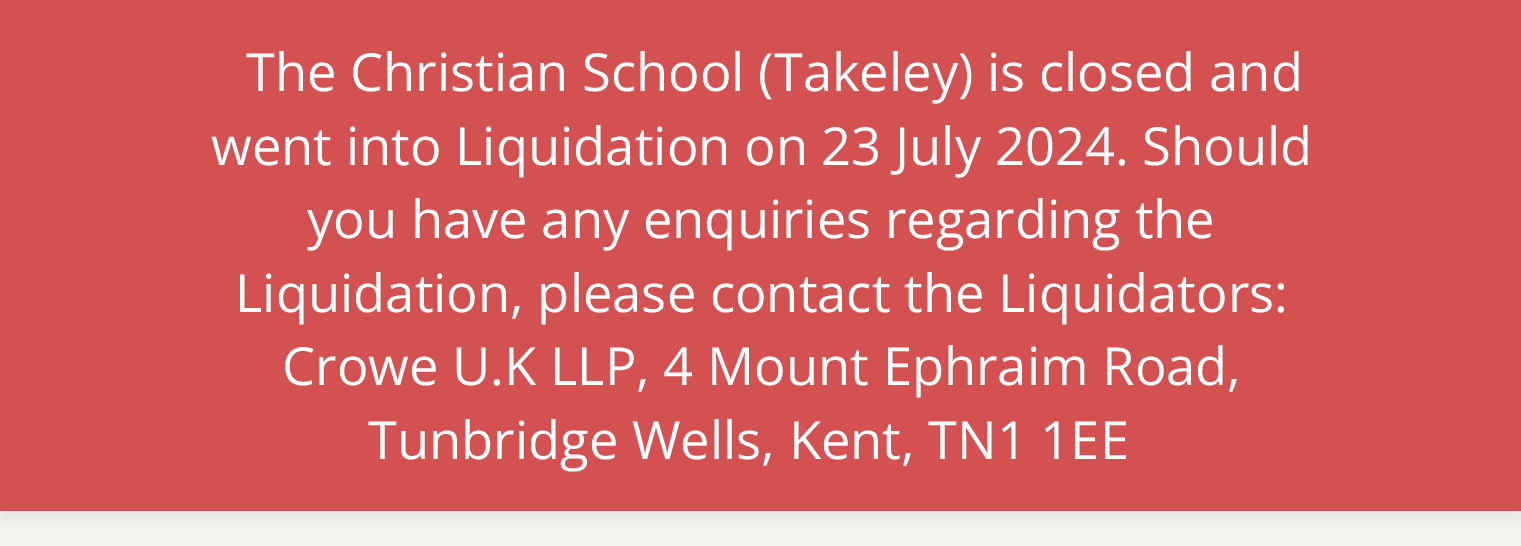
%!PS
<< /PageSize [1521 546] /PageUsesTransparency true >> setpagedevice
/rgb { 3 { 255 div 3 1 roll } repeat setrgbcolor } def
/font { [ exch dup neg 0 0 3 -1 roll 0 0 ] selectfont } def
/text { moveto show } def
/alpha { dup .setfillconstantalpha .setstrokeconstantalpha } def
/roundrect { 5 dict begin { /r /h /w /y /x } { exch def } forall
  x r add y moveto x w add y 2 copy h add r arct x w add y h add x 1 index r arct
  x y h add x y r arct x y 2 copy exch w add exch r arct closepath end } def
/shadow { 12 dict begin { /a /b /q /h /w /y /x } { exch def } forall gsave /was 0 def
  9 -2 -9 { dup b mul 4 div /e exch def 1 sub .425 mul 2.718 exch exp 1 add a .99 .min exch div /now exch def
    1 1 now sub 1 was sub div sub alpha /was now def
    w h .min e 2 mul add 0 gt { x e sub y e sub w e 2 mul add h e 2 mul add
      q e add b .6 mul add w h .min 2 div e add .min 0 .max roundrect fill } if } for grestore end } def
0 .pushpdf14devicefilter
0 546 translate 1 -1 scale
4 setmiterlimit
246 245 240 rgb
0 0 1521 546 rectfill
0 0 0 rgb
0 11 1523 511 0 7 0.05 shadow
211 81 81 rgb
0 0 1521 511 rectfill
/OpenSans-Regular 52.5 font
255 255 255 rgb
(The Christian School \(Takeley\) is closed and) 246 91 text
(went into Liquidation on 23 July 2024. Should) 211 165 text
(you have any enquiries regarding the) 307 238 text
(Liquidation, please contact the Liquidators:) 235 312 text
(Crowe U.K LLP, 4 Mount Ephraim Road,) 282 385 text
(Tunbridge Wells, Kent, TN1 1EE) 368 459 text
.poppdf14devicefilter showpage
